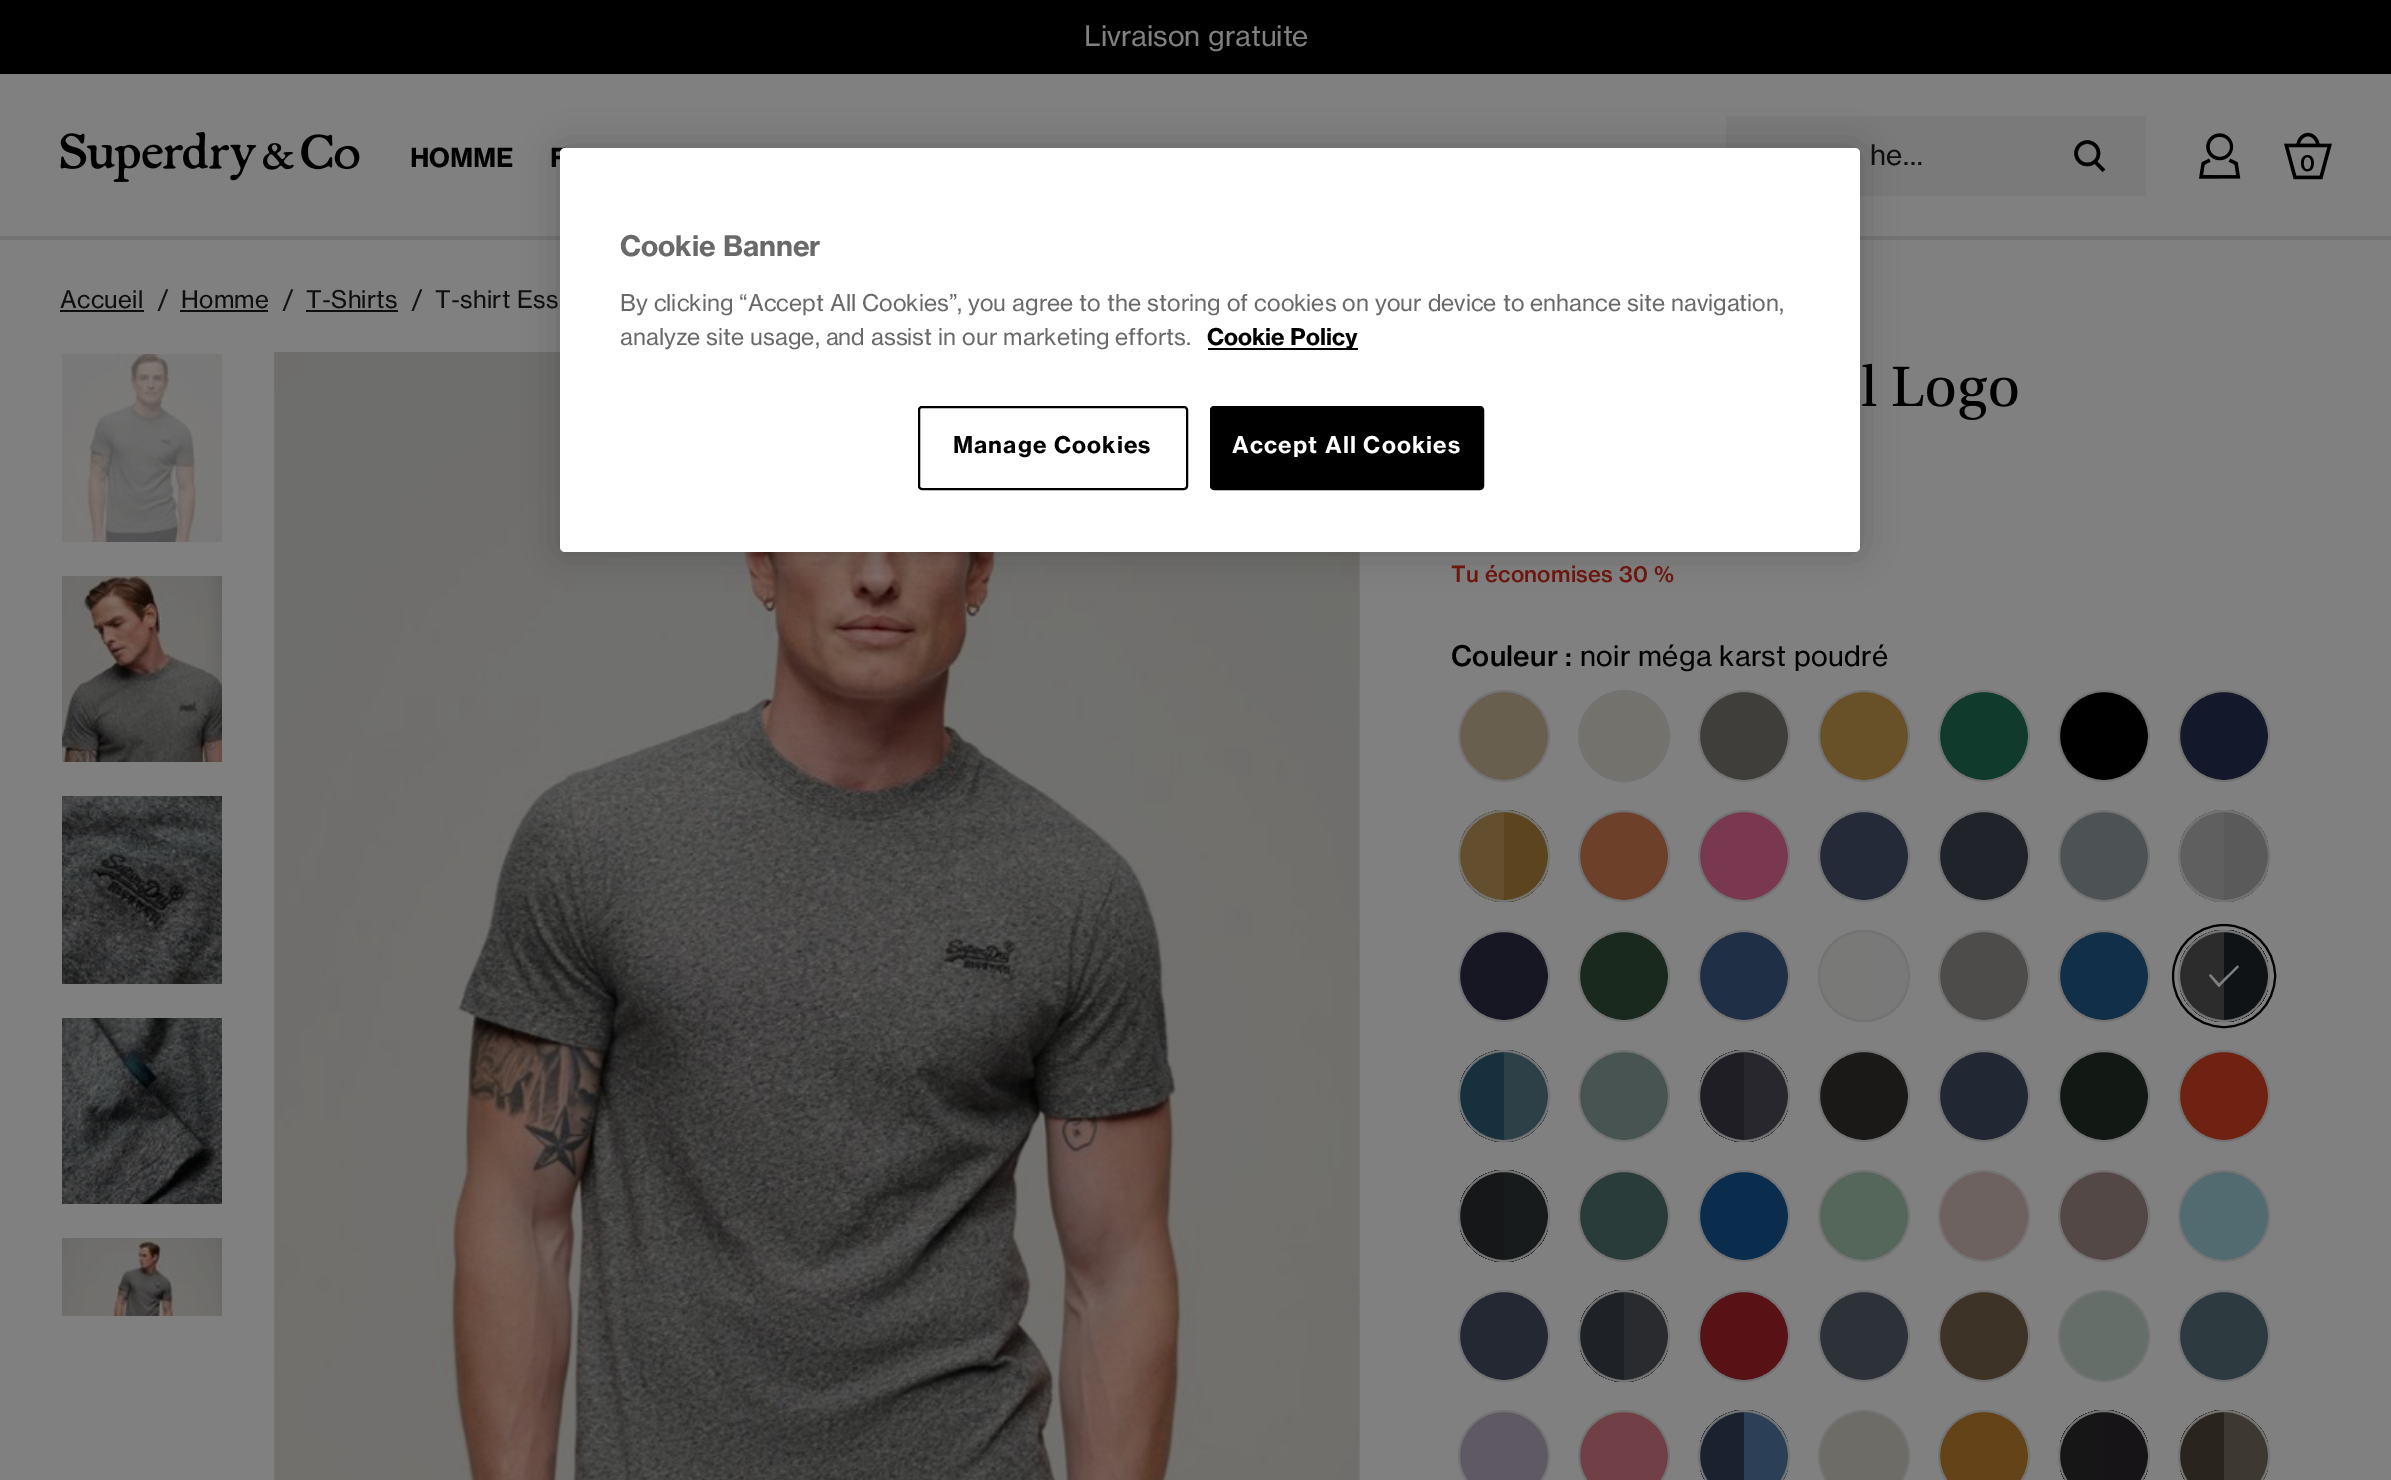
%!PS
<< /PageSize [2391 1480] /PageUsesTransparency true >> setpagedevice
/rgb { 3 { 255 div 3 1 roll } repeat setrgbcolor } def
/font { [ exch dup neg 0 0 3 -1 roll 0 0 ] selectfont } def
/text { moveto show } def
/alpha { dup .setfillconstantalpha .setstrokeconstantalpha } def
/circle { newpath 0 360 arc closepath } def
/roundrect { 5 dict begin { /r /h /w /y /x } { exch def } forall
  x r add y moveto x w add y 2 copy h add r arct x w add y h add x 1 index r arct
  x y h add x y r arct x y 2 copy exch w add exch r arct closepath end } def
/shadow { 12 dict begin { /a /b /q /h /w /y /x } { exch def } forall gsave /was 0 def
  9 -2 -9 { dup b mul 4 div /e exch def 1 sub .425 mul 2.718 exch exp 1 add a .99 .min exch div /now exch def
    1 1 now sub 1 was sub div sub alpha /was now def
    w h .min e 2 mul add 0 gt { x e sub y e sub w e 2 mul add h e 2 mul add
      q e add b .6 mul add w h .min 2 div e add .min 0 .max roundrect fill } if } for grestore end } def
/picture { 5 dict begin { /h /w /y /x /name } { exch def } forall
  gsave x y translate w h scale
  w h 8 [w 0 0 h 0 0] name (r) file false 3 colorimage grestore end } def
0 .pushpdf14devicefilter
0 1480 translate 1 -1 scale
4 setmiterlimit
128 128 128 rgb
0 0 2391 1480 rectfill
0 0 0 rgb
0 0 2391 74 rectfill
(img_01.rgb) 60 132 300 50 picture
122 122 122 rgb
1726 116 420 80 rectfill
(img_02.rgb) 2074 140 32 32 picture
(img_03.rgb) 2199 133 42 46 picture
(img_04.rgb) 2284 132 48 48 picture
115 115 115 rgb
0 236 2391 4 rectfill
15 15 15 rgb
60 310 84 2 rectfill
180 310 88 2 rectfill
306 310 92 2 rectfill
(img_05.rgb) 62 354 160 188 picture
(img_06.rgb) 62 576 160 186 picture
(img_07.rgb) 62 796 160 188 picture
(img_08.rgb) 62 1018 160 186 picture
(img_09.rgb) 62 1238 160 78 picture
(img_10.rgb) 274 352 1086 1128 picture
(img_11.rgb) 1862 363 156 57 picture
104 95 78 rgb
1504 736 45 circle gsave fill grestore
115 115 115 rgb
2 setlinewidth
stroke
116 114 109 rgb
1624 736 45 circle gsave fill grestore
115 115 115 rgb
stroke
64 62 59 rgb
1744 736 45 circle gsave fill grestore
115 115 115 rgb
stroke
104 80 41 rgb
1864 736 45 circle gsave fill grestore
115 115 115 rgb
stroke
16 59 44 rgb
1984 736 45 circle gsave fill grestore
115 115 115 rgb
stroke
0 0 0 rgb
2104 736 45 circle gsave fill grestore
115 115 115 rgb
stroke
19 24 43 rgb
2224 736 45 circle gsave fill grestore
115 115 115 rgb
stroke
gsave
1458 810 92 92 46 roundrect clip newpath
99 78 45 rgb
1460 810 44 92 rectfill
92 68 31 rgb
1504 810 44 92 rectfill
grestore
1504 856 45 circle stroke
109 64 42 rgb
1624 856 45 circle gsave fill grestore
115 115 115 rgb
stroke
121 55 80 rgb
1744 856 45 circle gsave fill grestore
115 115 115 rgb
stroke
37 42 57 rgb
1864 856 45 circle gsave fill grestore
115 115 115 rgb
stroke
32 35 41 rgb
1984 856 45 circle gsave fill grestore
115 115 115 rgb
stroke
77 83 84 rgb
2104 856 45 circle gsave fill grestore
115 115 115 rgb
stroke
gsave
2178 810 92 92 46 roundrect clip newpath
95 95 95 rgb
2180 810 44 92 rectfill
90 90 90 rgb
2224 810 44 92 rectfill
grestore
2224 856 45 circle stroke
22 23 34 rgb
1504 976 45 circle gsave fill grestore
115 115 115 rgb
stroke
26 41 30 rgb
1624 976 45 circle gsave fill grestore
115 115 115 rgb
stroke
31 47 70 rgb
1744 976 45 circle gsave fill grestore
115 115 115 rgb
stroke
gsave
1818 930 92 92 46 roundrect clip newpath
121 121 120 rgb
1820 930 44 92 rectfill
122 121 121 rgb
1864 930 44 92 rectfill
grestore
1864 976 45 circle stroke
77 76 75 rgb
1984 976 45 circle gsave fill grestore
115 115 115 rgb
stroke
17 47 72 rgb
2104 976 45 circle gsave fill grestore
115 115 115 rgb
stroke
gsave
2178 930 92 92 46 roundrect clip newpath
44 44 44 rgb
2180 930 44 92 rectfill
16 19 22 rgb
2224 930 44 92 rectfill
grestore
2224 976 45 circle stroke
0 0 0 rgb
2224 976 51 circle stroke
128 128 128 rgb
2239 967 moveto -17.5 17.5 rlineto -3 3 -2 3.5 -4.5 0.5 rcurveto -8 -9.5 rlineto 1.5 -1.5 rlineto 8.5 9.5 rlineto 18.5 -18 rlineto closepath fill
gsave
1458 1050 92 92 46 roundrect clip newpath
22 48 62 rgb
1460 1050 44 92 rectfill
45 64 72 rgb
1504 1050 44 92 rectfill
grestore
115 115 115 rgb
1504 1096 45 circle stroke
72 84 82 rgb
1624 1096 45 circle gsave fill grestore
115 115 115 rgb
stroke
gsave
1698 1050 92 92 46 roundrect clip newpath
30 30 36 rgb
1700 1050 44 92 rectfill
39 39 45 rgb
1744 1050 44 92 rectfill
grestore
1744 1096 45 circle stroke
26 25 24 rgb
1864 1096 45 circle gsave fill grestore
115 115 115 rgb
stroke
34 40 51 rgb
1984 1096 45 circle gsave fill grestore
115 115 115 rgb
stroke
18 25 20 rgb
2104 1096 45 circle gsave fill grestore
115 115 115 rgb
stroke
111 33 18 rgb
2224 1096 45 circle gsave fill grestore
115 115 115 rgb
stroke
gsave
1458 1170 92 92 46 roundrect clip newpath
22 23 25 rgb
1460 1170 44 92 rectfill
24 27 28 rgb
1504 1170 44 92 rectfill
grestore
1504 1216 45 circle stroke
42 60 57 rgb
1624 1216 45 circle gsave fill grestore
115 115 115 rgb
stroke
11 45 77 rgb
1744 1216 45 circle gsave fill grestore
115 115 115 rgb
stroke
85 102 90 rgb
1864 1216 45 circle gsave fill grestore
115 115 115 rgb
stroke
110 98 96 rgb
1984 1216 45 circle gsave fill grestore
115 115 115 rgb
stroke
83 72 70 rgb
2104 1216 45 circle gsave fill grestore
115 115 115 rgb
stroke
82 107 113 rgb
2224 1216 45 circle gsave fill grestore
115 115 115 rgb
stroke
35 40 50 rgb
1504 1336 45 circle gsave fill grestore
115 115 115 rgb
stroke
gsave
1578 1290 92 92 46 roundrect clip newpath
30 33 38 rgb
1580 1290 44 92 rectfill
41 43 47 rgb
1624 1290 44 92 rectfill
grestore
1624 1336 45 circle stroke
88 18 22 rgb
1744 1336 45 circle gsave fill grestore
115 115 115 rgb
stroke
45 50 57 rgb
1864 1336 45 circle gsave fill grestore
115 115 115 rgb
stroke
61 51 38 rgb
1984 1336 45 circle gsave fill grestore
115 115 115 rgb
stroke
101 110 104 rgb
2104 1336 45 circle gsave fill grestore
115 115 115 rgb
stroke
45 58 63 rgb
2224 1336 45 circle gsave fill grestore
115 115 115 rgb
stroke
94 89 98 rgb
1504 1456 45 circle gsave fill grestore
115 115 115 rgb
stroke
113 64 71 rgb
1624 1456 45 circle gsave fill grestore
115 115 115 rgb
stroke
gsave
1698 1410 92 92 46 roundrect clip newpath
26 34 48 rgb
1700 1410 44 70 rectfill
43 63 87 rgb
1744 1410 44 70 rectfill
grestore
1744 1456 45 circle stroke
110 108 102 rgb
1864 1456 45 circle gsave fill grestore
115 115 115 rgb
stroke
99 67 23 rgb
1984 1456 45 circle gsave fill grestore
115 115 115 rgb
stroke
gsave
2058 1410 92 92 46 roundrect clip newpath
23 22 23 rgb
2060 1410 44 70 rectfill
22 20 22 rgb
2104 1410 44 70 rectfill
grestore
2104 1456 45 circle stroke
gsave
2178 1410 92 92 46 roundrect clip newpath
42 36 31 rgb
2180 1410 44 70 rectfill
62 56 51 rgb
2224 1410 44 70 rectfill
grestore
2224 1456 45 circle stroke
0 0 0 rgb
560 148 1300 404 5 18 0.2 shadow
/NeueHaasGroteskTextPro-Regular 28 font
128 128 128 rgb
(Livraison gratuite) 1084 46 text
/NeueHaasGroteskTextPro-Bold 26 font
0 0 0 rgb
(HOMME) 410 167 text
(F) 550 167 text
/NeueHaasGroteskTextPro-Regular 28 font
15 15 15 rgb
1870 165 moveto 0.25 0 (he…) ashow
/NeueHaasGroteskTextPro-Medium 22 font
0 0 0 rgb
2300 171 moveto 0.25 0 (0) ashow
/NeueHaasGroteskTextPro-Regular 24 font
15 15 15 rgb
60 308 moveto 0.25 0 (Accueil) ashow
17 19 21 rgb
(/) 158 308 text
15 15 15 rgb
181 308 moveto 0.25 0 (Homme) ashow
17 19 21 rgb
(/) 283 308 text
15 15 15 rgb
306 308 moveto 0.25 0 (T-Shirts) ashow
17 19 21 rgb
(/) 412 308 text
15 15 15 rgb
435 308 moveto 0.25 0 (T-shirt Ess) ashow
/NeueHaasGroteskTextPro-Medium 22 font
108 22 13 rgb
1451 582 moveto 0.25 0 (Tu économises 30 %) ashow
/NeueHaasGroteskTextPro-Medium 28 font
0 0 0 rgb
1451 666 moveto 0.25 0 (Couleur :) ashow
/NeueHaasGroteskTextPro-Regular 28 font
1580 666 moveto 0.25 0 (noir méga karst poudré) ashow
255 255 255 rgb
560 148 1300 404 5 roundrect fill
/NeueHaasGroteskTextPro-Bold 28 font
105 105 105 rgb
(Cookie Banner) 620 256 text
/NeueHaasGroteskTextPro-Regular 22.75 font
(By clicking “Accept All Cookies”, you agree to the storing of cookies on your device to enhance site navigation,) 620 311 text
(analyze site usage, and assist in our marketing efforts.) 620 345 text
0 0 0 rgb
1208 348 150 2 rectfill
/NeueHaasGroteskTextPro-Bold 22.75 font
(Cookie Policy) 1207 345 text
919 407 268 82 3 roundrect stroke
953 453 moveto 1.1 0 (Manage Cookies) ashow
1211 407 272 82 3 roundrect gsave fill grestore
stroke
255 255 255 rgb
1232 453 moveto 1.1 0 (Accept All Cookies) ashow
.poppdf14devicefilter showpage
